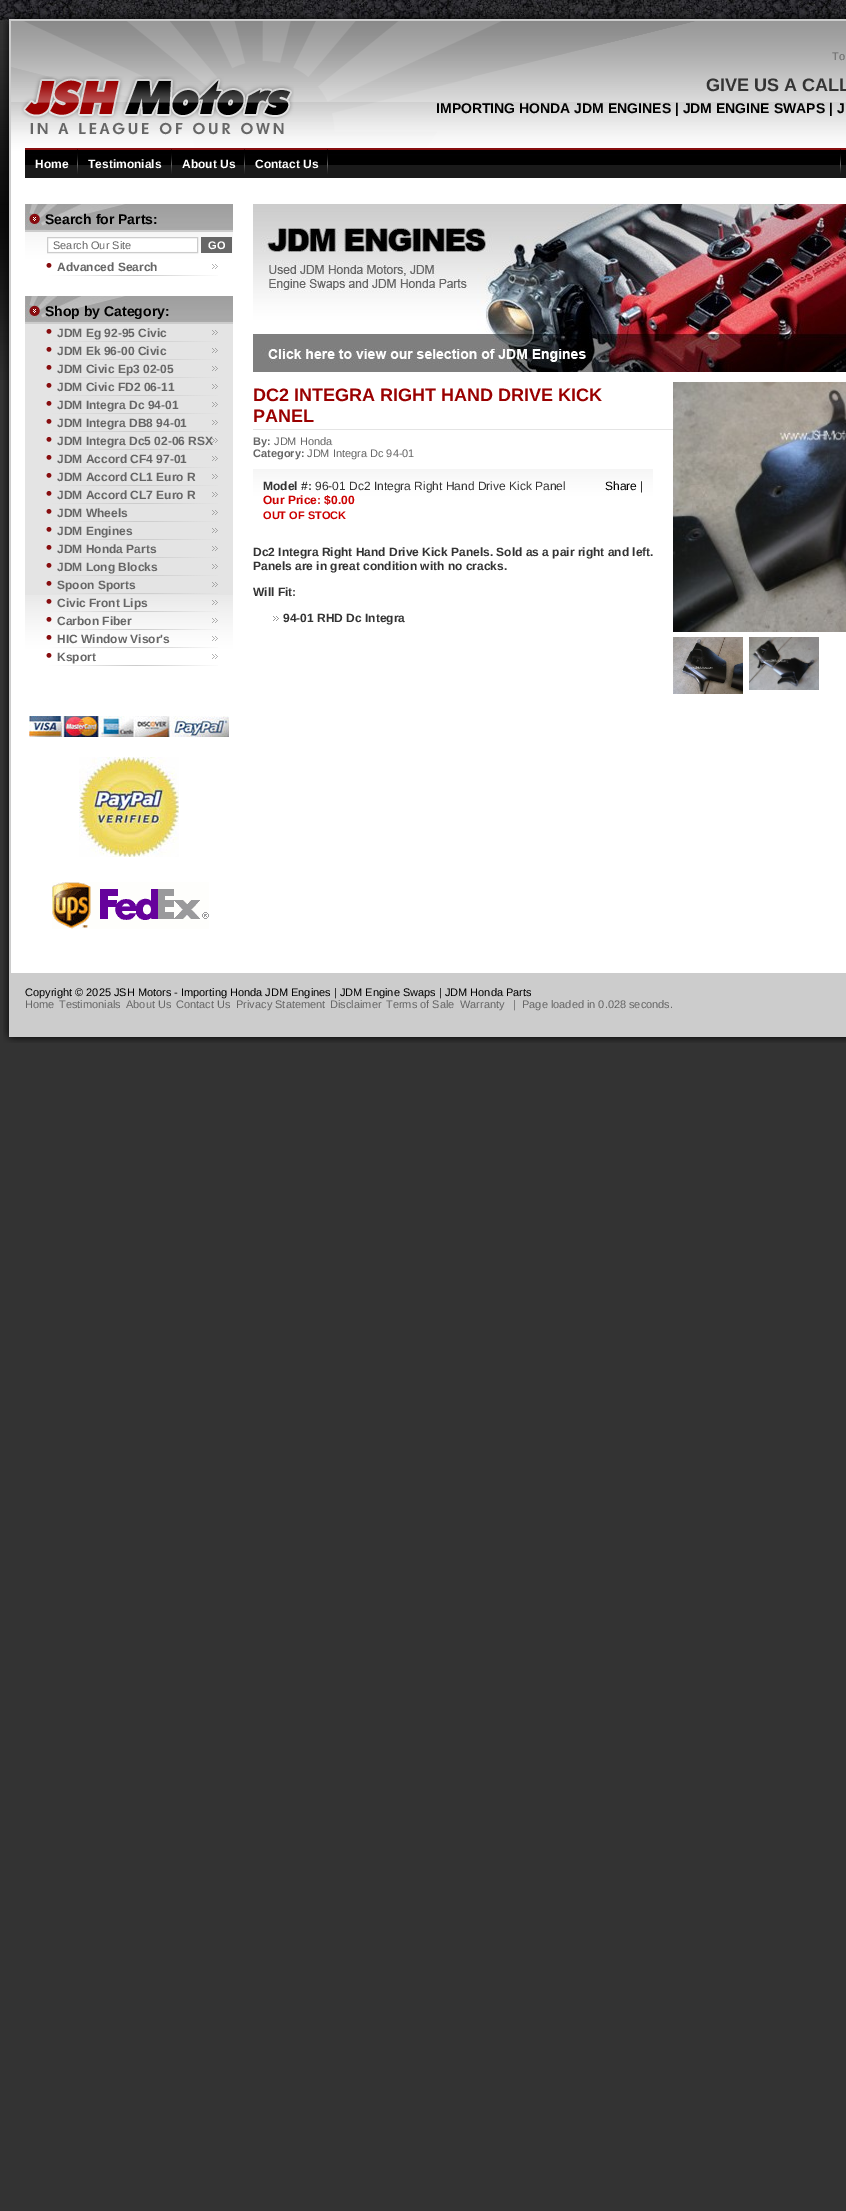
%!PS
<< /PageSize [846 2211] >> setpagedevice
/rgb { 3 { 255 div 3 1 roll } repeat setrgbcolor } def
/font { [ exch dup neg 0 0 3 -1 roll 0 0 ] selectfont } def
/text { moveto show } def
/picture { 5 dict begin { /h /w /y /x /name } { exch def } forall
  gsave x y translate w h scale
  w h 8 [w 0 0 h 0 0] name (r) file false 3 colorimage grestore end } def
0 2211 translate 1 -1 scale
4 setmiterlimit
51 51 51 rgb
0 0 846 2211 rectfill
(img_01.rgb) 0 0 846 380 picture
(img_02.rgb) 3 12 843 192 picture
(img_03.rgb) 21 76 273 59 picture
(img_04.rgb) 25 148 821 30 picture
(img_05.rgb) 77 149 1 25 picture
(img_05.rgb) 171 149 1 25 picture
(img_05.rgb) 244 149 1 25 picture
(img_05.rgb) 327 149 1 25 picture
(img_05.rgb) 840 149 1 25 picture
(img_06.rgb) 3 204 843 769 picture
(img_07.rgb) 25 204 208 28 picture
(img_08.rgb) 25 232 208 64 picture
255 255 255 rgb
48 238 149 13 rectfill
204 204 204 rgb
47.5 237.5 150 15 rectstroke
102 102 102 rgb
201 237 31 16 rectfill
(img_09.rgb) 46 263 172 13 picture
(img_07.rgb) 25 296 208 28 picture
228 228 228 rgb
25 324 208 271 rectfill
(img_10.rgb) 25 595 208 91 picture
(img_11.rgb) 46 329 172 13 picture
(img_11.rgb) 46 347 172 13 picture
(img_11.rgb) 46 365 172 13 picture
(img_11.rgb) 46 383 172 13 picture
(img_11.rgb) 46 401 172 13 picture
(img_11.rgb) 46 419 172 13 picture
(img_11.rgb) 46 437 172 13 picture
(img_11.rgb) 46 455 172 13 picture
(img_11.rgb) 46 473 172 13 picture
(img_11.rgb) 46 491 172 13 picture
(img_11.rgb) 46 509 172 13 picture
(img_11.rgb) 46 527 172 13 picture
(img_11.rgb) 46 545 172 13 picture
(img_11.rgb) 46 563 172 13 picture
(img_11.rgb) 46 581 172 13 picture
(img_12.rgb) 46 599 172 13 picture
(img_13.rgb) 46 617 172 13 picture
(img_14.rgb) 46 635 172 13 picture
(img_09.rgb) 46 653 172 13 picture
(img_15.rgb) 29 716 200 21 picture
(img_16.rgb) 79 757 100 100 picture
(img_17.rgb) 52 882 157 47 picture
(img_18.rgb) 253 204 593 168 picture
253 429 420 1 rectfill
(img_19.rgb) 673 382 173 250 picture
(img_20.rgb) 673 637 70 57 picture
(img_21.rgb) 749 637 70 53 picture
(img_22.rgb) 253 469 400 64 picture
(img_23.rgb) 273 616 6 5 picture
(img_24.rgb) 3 973 843 70 picture
/LiberationSans-Regular 11 font
102 102 102 rgb
(To) 832 60 text
/LiberationSans-Bold 18 font
51 51 51 rgb
(GIVE US A CALL) 706 91 text
/LiberationSans-Bold 14 font
0 0 0 rgb
(IMPORTING HONDA JDM ENGINES | JDM ENGINE SWAPS | J) 436 113 text
/LiberationSans-Bold 12 font
255 255 255 rgb
(Home) 35 168 text
(Testimonials) 88 168 text
(About Us) 182 168 text
(Contact Us) 255 168 text
/LiberationSans-Bold 14 font
0 0 0 rgb
(Search for Parts:) 45 224 text
/LiberationSans-Regular 11 font
102 102 102 rgb
(Search Our Site) 53 249 text
/LiberationSans-Bold 11 font
255 255 255 rgb
(GO) 208 249 text
/LiberationSans-Bold 12 font
102 102 102 rgb
(Advanced Search) 57 271 text
/LiberationSans-Bold 14 font
0 0 0 rgb
(Shop by Category:) 45 316 text
/LiberationSans-Bold 12 font
102 102 102 rgb
(JDM Eg 92-95 Civic) 57 337 text
(JDM Ek 96-00 Civic) 57 355 text
(JDM Civic Ep3 02-05) 57 373 text
(JDM Civic FD2 06-11) 57 391 text
(JDM Integra Dc 94-01) 57 409 text
(JDM Integra DB8 94-01) 57 427 text
(JDM Integra Dc5 02-06 RSX) 57 445 text
(JDM Accord CF4 97-01) 57 463 text
(JDM Accord CL1 Euro R) 57 481 text
(JDM Accord CL7 Euro R) 57 499 text
(JDM Wheels) 57 517 text
(JDM Engines) 57 535 text
(JDM Honda Parts) 57 553 text
(JDM Long Blocks) 57 571 text
(Spoon Sports) 57 589 text
(Civic Front Lips) 57 607 text
(Carbon Fiber) 57 625 text
(HIC Window Visor's) 57 643 text
(Ksport) 57 661 text
/LiberationSans-Bold 18 font
153 0 0 rgb
(DC2 INTEGRA RIGHT HAND DRIVE KICK) 253 401 text
(PANEL) 253 422 text
/LiberationSans-Bold 11 font
102 102 102 rgb
(By:) 253 445 text
/LiberationSans-Regular 11 font
(JDM Honda) 274 445 text
/LiberationSans-Bold 11 font
(Category:) 253 457 text
/LiberationSans-Regular 11 font
(JDM Integra Dc 94-01) 307 457 text
/LiberationSans-Bold 12 font
51 51 51 rgb
(Model #:) 263 490 text
/LiberationSans-Regular 12 font
(96-01 Dc2 Integra Right Hand Drive Kick Panel) 315 490 text
0 0 0 rgb
(Share) 605 490 text
51 51 51 rgb
(|) 640 490 text
/LiberationSans-Bold 12 font
204 0 0 rgb
(Our Price: $0.00) 263 504 text
/LiberationSans-Bold 11 font
(OUT OF STOCK) 263 519 text
/LiberationSans-Bold 12 font
51 51 51 rgb
(Dc2 Integra Right Hand Drive Kick Panels. Sold as a pair right and left.) 253 556 text
(Panels are in great condition with no cracks.) 253 570 text
(Will Fit:) 253 596 text
(94-01 RHD Dc Integra) 283 622 text
/LiberationSans-Regular 11 font
0 0 0 rgb
(Copyright © 2025 JSH Motors - Importing Honda JDM Engines | JDM Engine Swaps | JDM Honda Parts) 25 996 text
102 102 102 rgb
(Home) 25 1008 text
(Testimonials) 59 1008 text
(About Us) 126 1008 text
(Contact Us) 176 1008 text
(Privacy Statement) 236 1008 text
(Disclaimer) 330 1008 text
(Terms of Sale) 386 1008 text
(Warranty) 460 1008 text
(|  Page loaded in 0.028 seconds.) 513 1008 text
showpage
